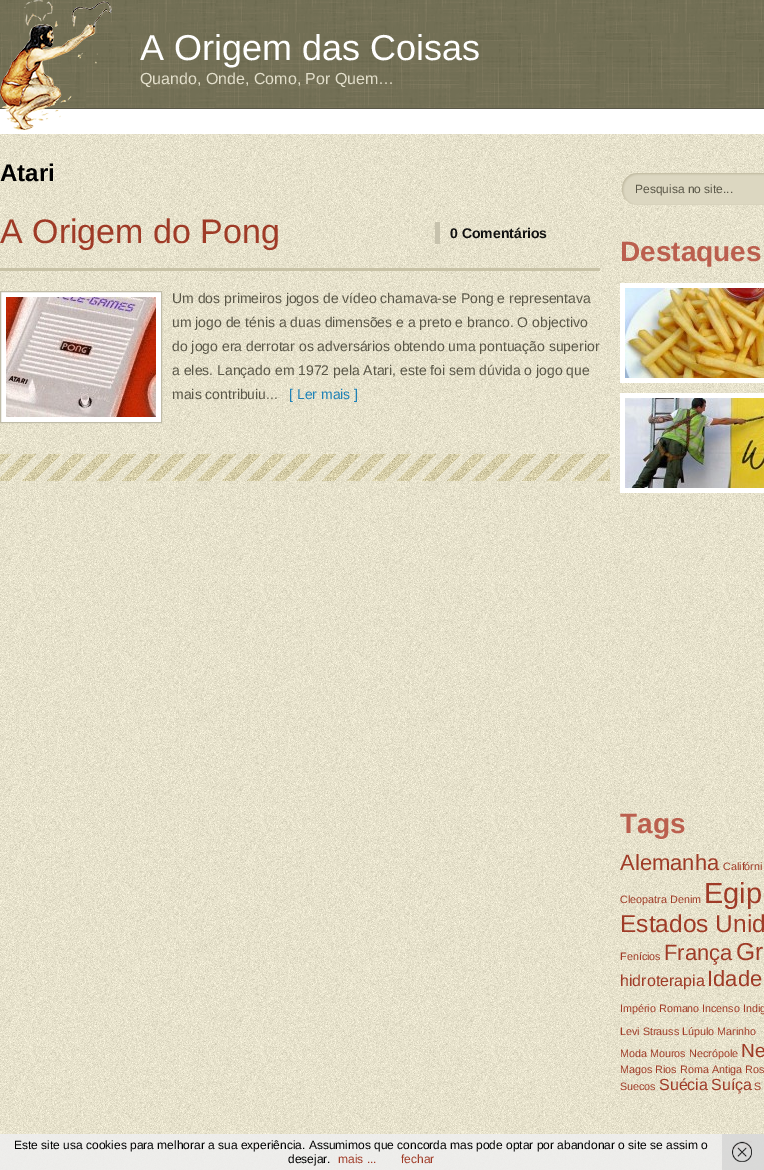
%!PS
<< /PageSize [764 1170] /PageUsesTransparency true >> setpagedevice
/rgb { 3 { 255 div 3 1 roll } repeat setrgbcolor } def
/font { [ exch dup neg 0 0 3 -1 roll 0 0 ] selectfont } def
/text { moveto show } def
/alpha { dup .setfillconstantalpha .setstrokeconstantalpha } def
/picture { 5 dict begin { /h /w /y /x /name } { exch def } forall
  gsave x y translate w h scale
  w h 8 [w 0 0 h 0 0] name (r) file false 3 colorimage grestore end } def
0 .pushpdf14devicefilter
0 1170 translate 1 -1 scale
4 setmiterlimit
255 255 255 rgb
0 0 764 1170 rectfill
(img_01.rgb) 0 134 764 1036 picture
(img_02.rgb) 0 0 764 108 picture
90 87 72 rgb
0 108 764 1 rectfill
(img_03.rgb) 0 0 112 130 picture
199 193 165 rgb
0 268 600 3 rectfill
199 194 173 rgb
435 222 5 22 rectfill
255 255 255 rgb
0.5 291.5 moveto 161 0 rlineto 0 131 rlineto -161 0 rlineto closepath gsave fill grestore
191 187 167 rgb
stroke
(img_04.rgb) 6 297 150 120 picture
(img_05.rgb) 0 453 610 28 picture
(img_06.rgb) 620 169 144 37 picture
255 255 255 rgb
620 283 144 100 rectfill
(img_07.rgb) 625 288 139 90 picture
620 393 144 100 rectfill
(img_08.rgb) 625 398 139 90 picture
0.9 alpha
238 238 238 rgb
0 1134 764 36 rectfill
0.6 alpha
204 204 204 rgb
722 1134 42 36 rectfill
1 alpha
(img_09.rgb) 732 1141 20 21 picture
/LiberationSans-Regular 36 font
255 255 255 rgb
(A Origem das Coisas) 140 60 text
/LiberationSans-Regular 16 font
227 223 203 rgb
(Quando, Onde, Como, Por Quem…) 140 84 text
/LiberationSans-Bold 24 font
0 0 0 rgb
(Atari) 0 181 text
/LiberationSans-Regular 34 font
159 59 39 rgb
(A Origem do Pong) 0 243 text
/LiberationSans-Bold 14 font
17 17 17 rgb
(0 Comentários) 450 238 text
/LiberationSans-Regular 14 font
89 86 71 rgb
(Um dos primeiros jogos de vídeo chamava-se Pong e representava) 172 303 text
(um jogo de ténis a duas dimensões e a preto e branco. O objectivo) 172 327 text
(do jogo era derrotar os adversários obtendo uma pontuação superior) 172 351 text
(a eles. Lançado em 1972 pela Atari, este foi sem dúvida o jogo que) 172 375 text
(mais contribuiu...) 172 399 text
29 129 182 rgb
([ Ler mais ]) 289 399 text
/LiberationSans-Regular 12 font
89 86 71 rgb
(Pesquisa no site...) 635 193 text
/LiberationSans-Bold 28 font
187 95 78 rgb
(Destaques) 620 261 text
(Tags) 620 833 text
/LiberationSans-Regular 22 font
159 59 39 rgb
(Alemanha) 620 870 text
/LiberationSans-Regular 10.75 font
(Califórni) 723 870 text
(Cleopatra) 620 903 text
(Denim) 670 903 text
/LiberationSans-Regular 29 font
(Egip) 704 903 text
/LiberationSans-Regular 24.5 font
(Estados Unid) 620 932 text
/LiberationSans-Regular 10.75 font
(Fenícios) 620 960 text
/LiberationSans-Regular 22 font
(França) 664 960 text
/LiberationSans-Regular 24.5 font
(Gr) 736 960 text
/LiberationSans-Regular 16 font
(hidroterapia) 620 986 text
/LiberationSans-Regular 22 font
(Idade) 707 986 text
/LiberationSans-Regular 10.75 font
(Império Romano) 620 1012 text
(Incenso) 702 1012 text
(Indig) 743 1012 text
(Levi Strauss) 620 1035 text
(Lúpulo) 682 1035 text
(Marinho) 717 1035 text
(Moda) 620 1057 text
(Mouros) 650 1057 text
(Necrópole) 689 1057 text
/LiberationSans-Regular 19 font
(Ne) 741 1057 text
/LiberationSans-Regular 10.75 font
(Magos) 620 1073 text
(Rios) 655 1073 text
(Roma Antiga) 680 1073 text
(Ros) 745 1073 text
(Suecos) 620 1090 text
/LiberationSans-Regular 16 font
(Suécia) 659 1090 text
(Suíça) 711 1090 text
/LiberationSans-Regular 10.75 font
(S) 754 1090 text
/LiberationSans-Regular 12 font
0 0 0 rgb
(Este site usa cookies para melhorar a sua experiência. Assumimos que concorda mas pode optar por abandonar o site se assim o) 14 1149 text
(desejar.) 288 1163 text
159 59 39 rgb
(mais ...) 338 1163 text
(fechar) 401 1163 text
.poppdf14devicefilter showpage
